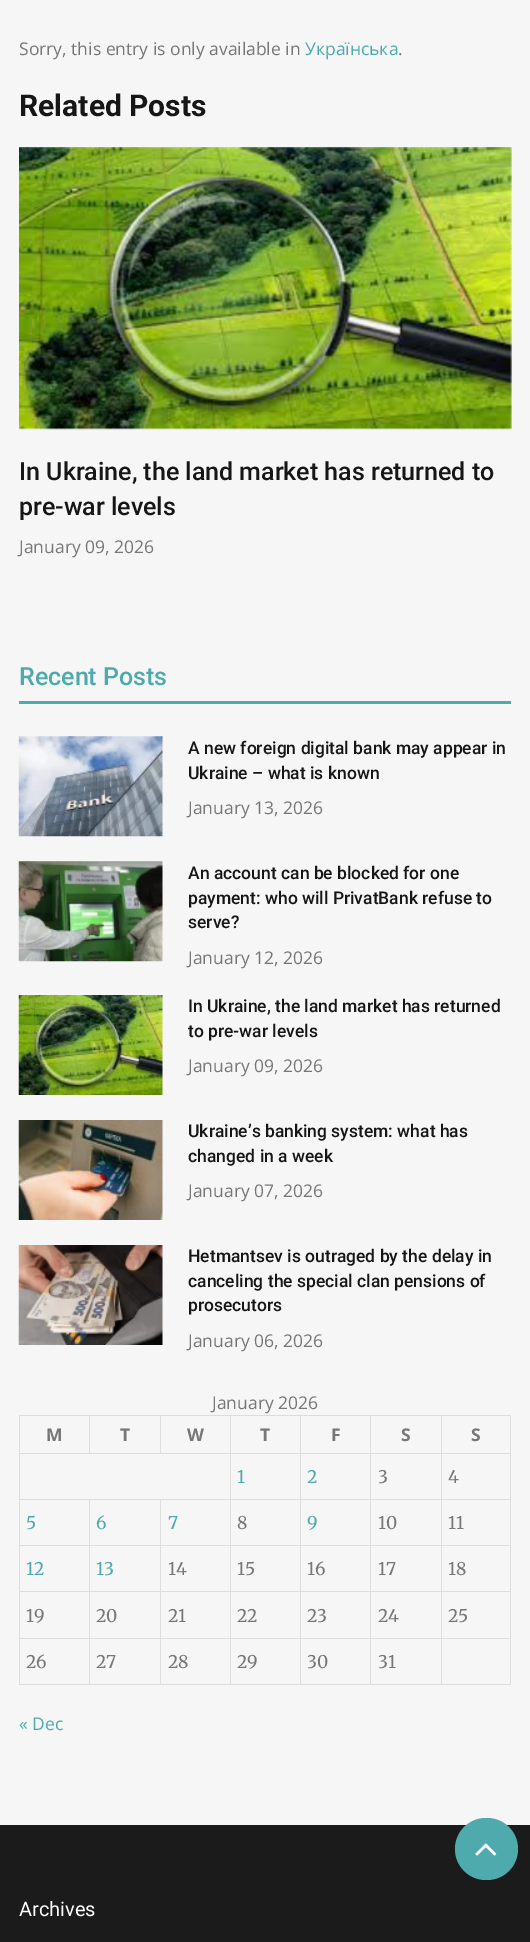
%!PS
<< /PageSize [530 1942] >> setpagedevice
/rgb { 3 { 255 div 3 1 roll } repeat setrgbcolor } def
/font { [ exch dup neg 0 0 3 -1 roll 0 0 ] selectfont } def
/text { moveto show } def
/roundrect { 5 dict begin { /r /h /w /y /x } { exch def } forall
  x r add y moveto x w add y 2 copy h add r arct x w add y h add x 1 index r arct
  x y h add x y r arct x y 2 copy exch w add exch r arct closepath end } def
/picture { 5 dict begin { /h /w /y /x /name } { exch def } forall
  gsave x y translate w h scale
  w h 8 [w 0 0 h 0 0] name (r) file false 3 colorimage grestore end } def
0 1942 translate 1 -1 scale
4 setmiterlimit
246 246 246 rgb
0 0 530 1942 rectfill
(img_01.rgb) 19 147 493 283 picture
79 170 173 rgb
19 701 492 3 rectfill
(img_02.rgb) 18 736 145 101 picture
(img_03.rgb) 18 861 145 101 picture
(img_04.rgb) 18 995 145 100 picture
(img_05.rgb) 18 1120 145 100 picture
(img_06.rgb) 18 1245 145 100 picture
221 221 221 rgb
441 1415 70 1 rectfill
441 1453 70 1 rectfill
441 1499 70 1 rectfill
441 1545 70 1 rectfill
441 1591 70 1 rectfill
441 1638 70 1 rectfill
510 1638 1 47 rectfill
441 1684 70 1 rectfill
441 1638 1 47 rectfill
370 1638 73 1 rectfill
441 1591 1 48 rectfill
370 1591 73 1 rectfill
441 1545 1 48 rectfill
370 1545 73 1 rectfill
441 1499 1 47 rectfill
370 1499 73 1 rectfill
441 1453 1 47 rectfill
370 1453 73 1 rectfill
441 1415 1 39 rectfill
370 1415 73 1 rectfill
370 1684 73 1 rectfill
370 1638 1 47 rectfill
300 1638 71 1 rectfill
370 1591 1 48 rectfill
300 1591 71 1 rectfill
370 1545 1 48 rectfill
300 1545 71 1 rectfill
370 1499 1 47 rectfill
300 1499 71 1 rectfill
370 1453 1 47 rectfill
300 1453 71 1 rectfill
370 1415 1 39 rectfill
300 1415 71 1 rectfill
300 1684 71 1 rectfill
300 1638 1 47 rectfill
230 1638 71 1 rectfill
300 1591 1 48 rectfill
230 1591 71 1 rectfill
300 1545 1 48 rectfill
230 1545 71 1 rectfill
300 1499 1 47 rectfill
230 1499 71 1 rectfill
300 1453 1 47 rectfill
230 1453 71 1 rectfill
300 1415 1 39 rectfill
230 1415 71 1 rectfill
230 1684 71 1 rectfill
230 1638 1 47 rectfill
160 1638 71 1 rectfill
230 1591 1 48 rectfill
160 1591 71 1 rectfill
230 1545 1 48 rectfill
160 1545 71 1 rectfill
230 1499 1 47 rectfill
160 1499 71 1 rectfill
230 1453 1 47 rectfill
19 1453 212 1 rectfill
230 1415 1 39 rectfill
160 1415 71 1 rectfill
160 1415 1 39 rectfill
89 1415 72 1 rectfill
89 1415 1 39 rectfill
19 1415 71 1 rectfill
160 1684 71 1 rectfill
160 1638 1 47 rectfill
89 1638 72 1 rectfill
160 1591 1 48 rectfill
89 1591 72 1 rectfill
160 1545 1 48 rectfill
89 1545 72 1 rectfill
160 1499 1 47 rectfill
89 1499 72 1 rectfill
89 1684 72 1 rectfill
89 1638 1 47 rectfill
19 1638 71 1 rectfill
89 1591 1 48 rectfill
19 1591 71 1 rectfill
89 1545 1 48 rectfill
19 1545 71 1 rectfill
89 1499 1 47 rectfill
19 1499 71 1 rectfill
19 1684 71 1 rectfill
19 1638 1 47 rectfill
19 1591 1 48 rectfill
19 1545 1 48 rectfill
19 1499 1 47 rectfill
19 1453 1 47 rectfill
19 1415 1 39 rectfill
510 1591 1 48 rectfill
510 1545 1 48 rectfill
510 1499 1 47 rectfill
510 1453 1 47 rectfill
510 1415 1 39 rectfill
27 27 27 rgb
0 1825 530 117 rectfill
79 170 173 rgb
455 1818 63 62 31 roundrect fill
(img_07.rgb) 475 1843 22 13 picture
/OpenSans-Regular 17.5 font
119 119 119 rgb
(Sorry, this entry is only available in) 19 55 text
79 170 173 rgb
(Українська) 305 55 text
119 119 119 rgb
(.) 398 55 text
/Roboto-Bold 30 font
22 22 22 rgb
(Related Posts) 19 116 text
/Roboto-Medium 25 font
(In Ukraine, the land market has returned to) 19 480 text
(pre-war levels) 19 515 text
/OpenSans-Regular 17.5 font
119 119 119 rgb
(January 09, 2026) 19 553 text
/Roboto-Medium 25 font
79 170 173 rgb
(Recent Posts) 19 685 text
/Roboto-Medium 17.5 font
22 22 22 rgb
(A new foreign digital bank may appear in) 188 754 text
(Ukraine – what is known) 188 779 text
/OpenSans-Regular 17.5 font
119 119 119 rgb
(January 13, 2026) 188 814 text
/Roboto-Medium 17.5 font
22 22 22 rgb
(An account can be blocked for one) 188 879 text
(payment: who will PrivatBank refuse to) 188 904 text
(serve?) 188 928 text
/OpenSans-Regular 17.5 font
119 119 119 rgb
(January 12, 2026) 188 964 text
/Roboto-Medium 17.5 font
22 22 22 rgb
(In Ukraine, the land market has returned) 188 1012 text
(to pre-war levels) 188 1037 text
/OpenSans-Regular 17.5 font
119 119 119 rgb
(January 09, 2026) 188 1072 text
/Roboto-Medium 17.5 font
22 22 22 rgb
(Ukraine’s banking system: what has) 188 1137 text
(changed in a week) 188 1162 text
/OpenSans-Regular 17.5 font
119 119 119 rgb
(January 07, 2026) 188 1197 text
/Roboto-Medium 17.5 font
22 22 22 rgb
(Hetmantsev is outraged by the delay in) 188 1262 text
(canceling the special clan pensions of) 188 1287 text
(prosecutors) 188 1311 text
/OpenSans-Regular 17.5 font
119 119 119 rgb
(January 06, 2026) 188 1347 text
(January 2026) 212 1409 text
/OpenSans-Bold 17.5 font
(M) 46 1441 text
(T) 120 1441 text
(W) 187 1441 text
(T) 260 1441 text
(F) 331 1441 text
(S) 401 1441 text
(S) 471 1441 text
/Merriweather-Regular 17.5 font
79 170 173 rgb
(1) 237 1483 text
(2) 307 1483 text
119 119 119 rgb
(3) 378 1483 text
(4) 448 1483 text
79 170 173 rgb
(5) 26 1529 text
(6) 96 1529 text
(7) 168 1529 text
119 119 119 rgb
(8) 237 1529 text
79 170 173 rgb
(9) 307 1529 text
119 119 119 rgb
(10) 378 1529 text
(11) 448 1529 text
79 170 173 rgb
(12) 26 1575 text
(13) 96 1575 text
119 119 119 rgb
(14) 168 1575 text
(15) 237 1575 text
(16) 307 1575 text
(17) 378 1575 text
(18) 448 1575 text
(19) 26 1622 text
(20) 96 1622 text
(21) 168 1622 text
(22) 237 1622 text
(23) 307 1622 text
(24) 378 1622 text
(25) 448 1622 text
(26) 26 1668 text
(27) 96 1668 text
(28) 168 1668 text
(29) 237 1668 text
(30) 307 1668 text
(31) 378 1668 text
/OpenSans-Regular 17.5 font
79 170 173 rgb
(« Dec) 19 1730 text
/Roboto-Regular 20 font
255 255 255 rgb
(Archives) 19 1916 text
showpage
